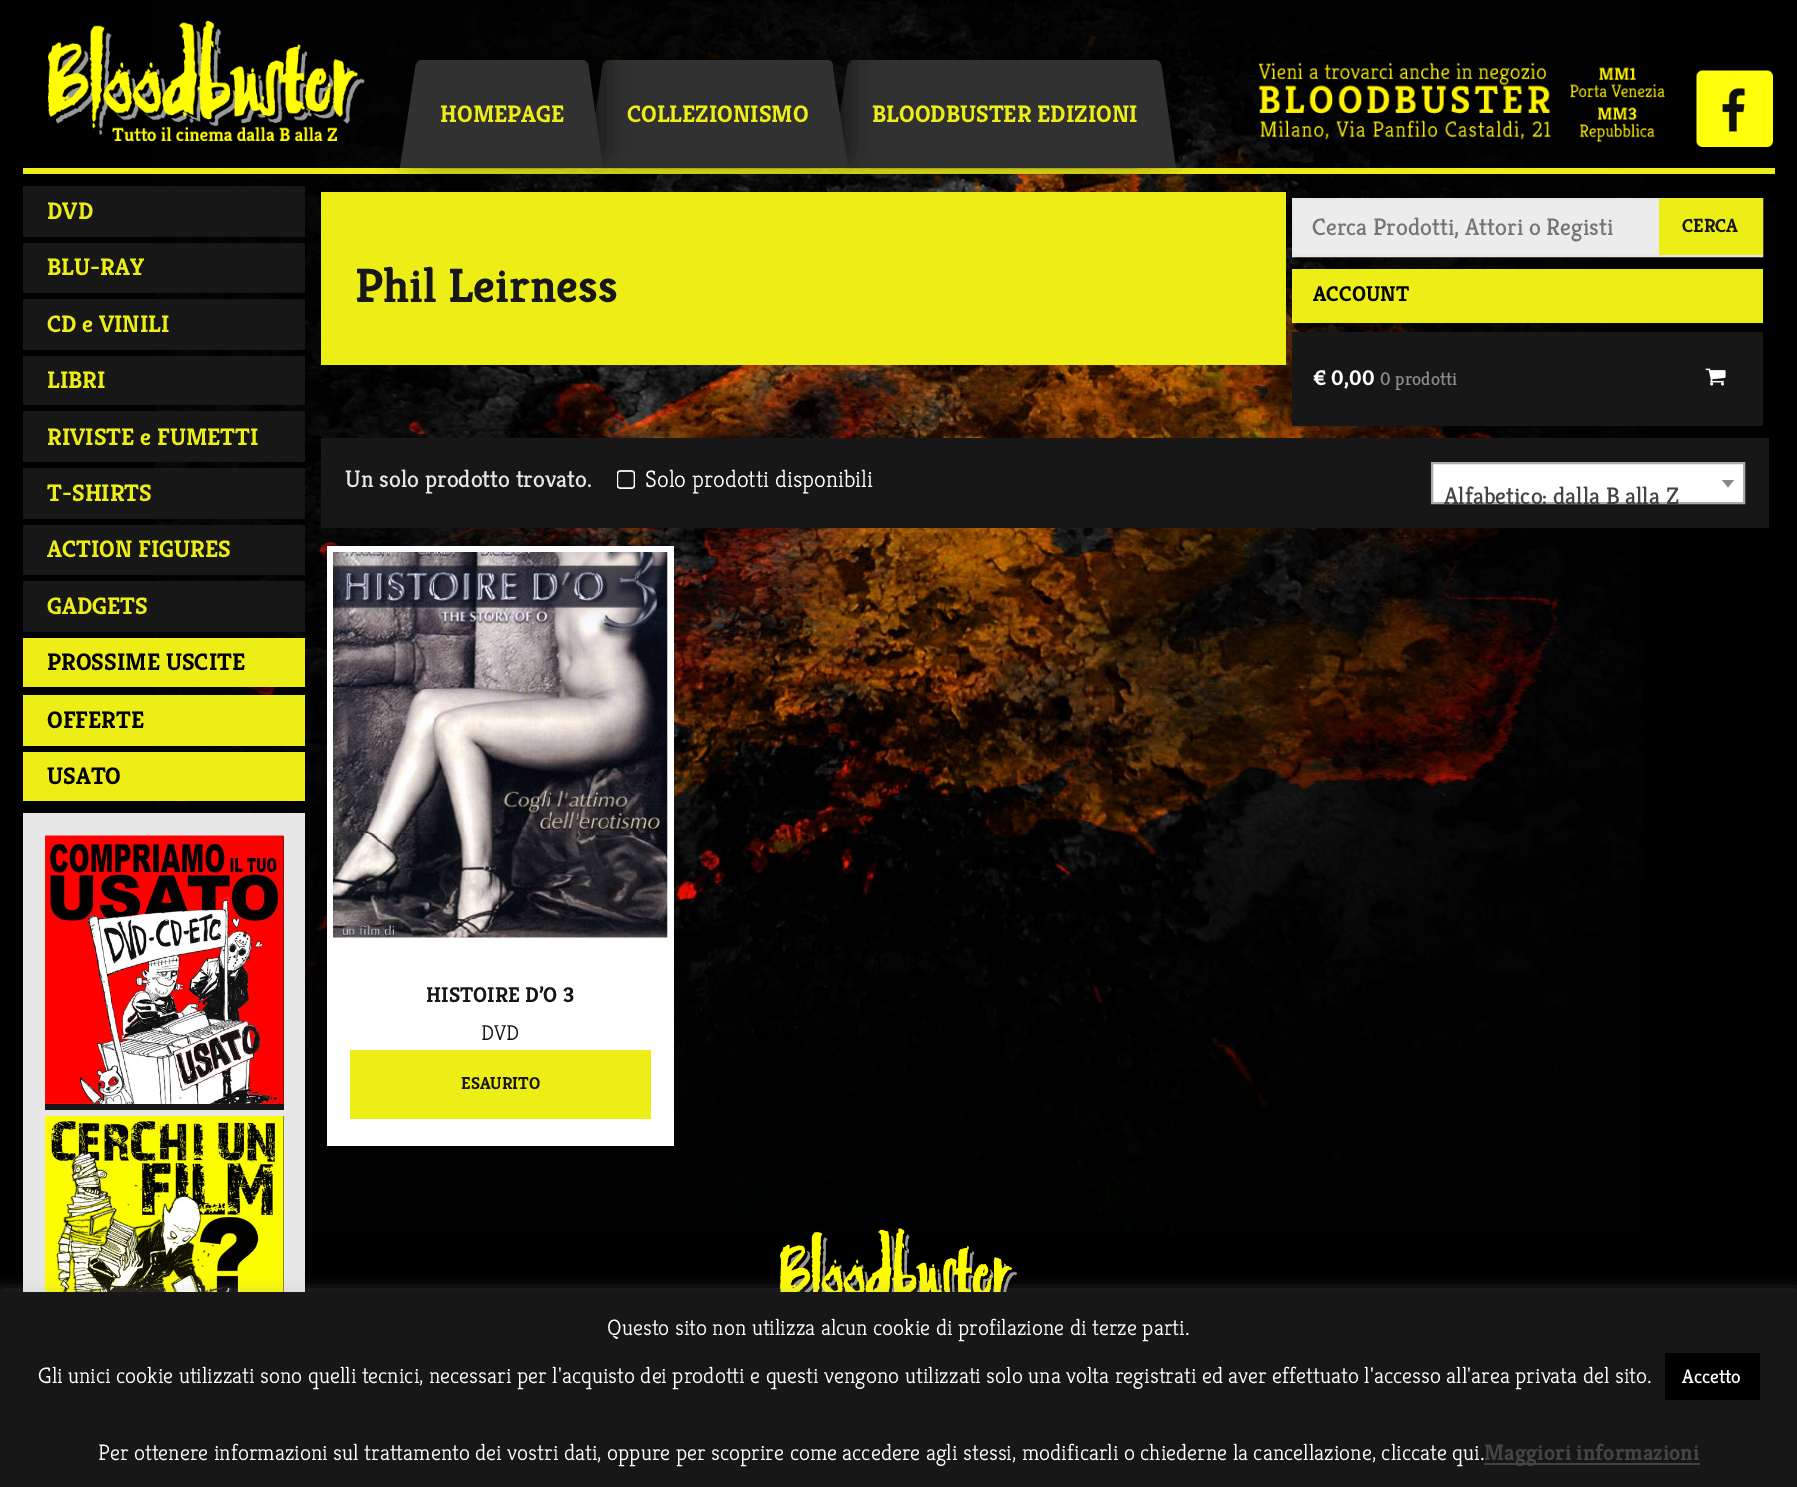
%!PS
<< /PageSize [1797 1487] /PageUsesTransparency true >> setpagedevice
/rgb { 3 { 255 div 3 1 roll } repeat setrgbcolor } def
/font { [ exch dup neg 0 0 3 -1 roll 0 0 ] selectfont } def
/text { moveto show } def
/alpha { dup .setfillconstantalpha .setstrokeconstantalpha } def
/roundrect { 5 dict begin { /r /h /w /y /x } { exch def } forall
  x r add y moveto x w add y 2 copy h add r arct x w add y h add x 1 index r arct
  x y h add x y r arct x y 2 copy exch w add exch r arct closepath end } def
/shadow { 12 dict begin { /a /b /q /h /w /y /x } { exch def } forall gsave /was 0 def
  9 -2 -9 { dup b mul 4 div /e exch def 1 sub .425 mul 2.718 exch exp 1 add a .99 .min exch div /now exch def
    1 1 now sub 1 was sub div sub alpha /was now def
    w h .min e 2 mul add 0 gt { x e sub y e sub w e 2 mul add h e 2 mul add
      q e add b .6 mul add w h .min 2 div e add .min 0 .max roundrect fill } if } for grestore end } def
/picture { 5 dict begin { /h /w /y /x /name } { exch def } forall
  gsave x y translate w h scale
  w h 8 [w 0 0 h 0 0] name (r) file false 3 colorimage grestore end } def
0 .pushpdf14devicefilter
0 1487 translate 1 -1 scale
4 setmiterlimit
0 0 0 rgb
0 0 1797 1487 rectfill
(img_01.rgb) 154 0 1488 1234 picture
(img_02.rgb) 48 21 317 120 picture
238 238 23 rgb
23 168 1752 6 rectfill
321 192 965 173 rectfill
0 0 0 rgb
863 50 313 108 6 15 0.5 shadow
833 50 313 108 6 15 0.5 shadow
49 49 49 rgb
854 60 moveto 301 0 rlineto 3.5 0 6 2.5 6 6 rcurveto 0 102 rlineto -313 0 rlineto 0 -102 rlineto 0 -3.5 2.5 -6 6 -6 rcurveto closepath fill
848 63 moveto 0 105 rlineto -16 0 rlineto closepath fill
0 0 0 rgb
618 50 230 108 6 15 0.5 shadow
588 50 230 108 6 15 0.5 shadow
49 49 49 rgb
609 60 moveto 218 0 rlineto 3.5 0 6 2.5 6 6 rcurveto 0 102 rlineto -230 0 rlineto 0 -102 rlineto 0 -3.5 2.5 -6 6 -6 rcurveto closepath fill
603 63 moveto 0 105 rlineto -15 0 rlineto closepath fill
0 0 0 rgb
431 50 172 108 6 15 0.5 shadow
401 50 172 108 6 15 0.5 shadow
49 49 49 rgb
422 60 moveto 160 0 rlineto 3.5 0 6 2.5 6 6 rcurveto 0 102 rlineto -172 0 rlineto 0 -102 rlineto 0 -3.5 2.5 -6 6 -6 rcurveto closepath fill
416 63 moveto 0 105 rlineto -16 0 rlineto closepath fill
588 168 moveto 0 -105 rlineto 15 105 rlineto closepath fill
832 168 moveto 0 -105 rlineto 16 105 rlineto closepath fill
1161 168 moveto 0 -105 rlineto 15 105 rlineto closepath fill
(img_03.rgb) 1258 62 407 81 picture
(img_04.rgb) 1696 70 77 77 picture
23 23 23 rgb
23 186 282 51 rectfill
23 243 282 50 rectfill
23 299 282 51 rectfill
23 356 282 49 rectfill
23 411 282 51 rectfill
23 468 282 51 rectfill
23 525 282 50 rectfill
23 581 282 51 rectfill
238 238 23 rgb
23 638 282 49 rectfill
23 695 282 51 rectfill
23 752 282 49 rectfill
231 231 231 rgb
23 813 282 479 rectfill
23 23 23 rgb
45 836 239 274 rectfill
(img_05.rgb) 45 835 239 269 picture
283 1116 1 176 rectfill
(img_06.rgb) 45 1116 239 176 picture
236 236 236 rgb
1294 200 365 55 rectfill
231 231 231 rgb
2 setlinewidth
1293 199 469 57 rectstroke
238 238 23 rgb
1659 198 104 57 rectfill
1292 269 471 54 rectfill
23 23 23 rgb
1292 332 471 94 rectfill
(img_07.rgb) 1705 368 21 18 picture
321 438 1448 90 rectfill
(img_08.rgb) 617 470 18 19 picture
255 255 255 rgb
1432 463 moveto 312 0 rlineto 0 40 rlineto -312 0 rlineto closepath gsave fill grestore
170 170 170 rgb
stroke
136 136 136 rgb
1722 480 moveto 12 0 rlineto -6 7.5 rlineto closepath fill
255 255 255 rgb
327 546 347 600 rectfill
(img_09.rgb) 333 552 335 386 picture
238 238 23 rgb
350 1050 301 69 rectfill
(img_10.rgb) 780 1228 237 64 picture
172 171 171 rgb
0 1290 1797 197 0 7.5 0.3 shadow
23 23 23 rgb
0 1292 1797 195 rectfill
0 0 0 rgb
1665 1353 95 47 rectfill
68 68 68 rgb
1484 1463 216 2 rectfill
/Kreon-Bold 24 font
238 238 23 rgb
(HOMEPAGE) 440 122 text
(COLLEZIONISMO) 627 122 text
(BLOODBUSTER EDIZIONI) 872 122 text
(DVD) 47 219 text
(BLU-RAY) 47 275 text
(CD e VINILI) 47 332 text
(LIBRI) 47 388 text
(RIVISTE e FUMETTI) 47 445 text
(T-SHIRTS) 47 501 text
(ACTION FIGURES) 47 557 text
(GADGETS) 47 614 text
0 0 0 rgb
(PROSSIME USCITE) 47 670 text
(OFFERTE) 47 728 text
(USATO) 47 784 text
/Kreon-Bold 48 font
23 23 23 rgb
(Phil Leirness) 355 302 text
/Kreon-Regular 24 font
117 117 117 rgb
(Cerca Prodotti, Attori o Registi) 1312 235 text
/Kreon-Bold 19 font
23 23 23 rgb
(CERCA) 1682 232 text
/Kreon-Bold 21.5 font
0 0 0 rgb
(ACCOUNT) 1313 301 text
255 255 255 rgb
(€ 0,00) 1313 385 text
/Kreon-Regular 18.5 font
139 139 139 rgb
(0 prodotti) 1380 385 text
/Kreon-Regular 24 font
231 231 231 rgb
(Un solo prodotto trovato.) 345 487 text
/Kreon-Light 24 font
255 255 255 rgb
(Solo prodotti disponibili) 645 487 text
/Kreon-Regular 24 font
68 68 68 rgb
(Alfabetico: dalla B alla Z) 1444 504 text
/Kreon-Bold 21.5 font
23 23 23 rgb
(HISTOIRE D’O 3) 426 1002 text
/Kreon-Light 21.5 font
(DVD) 481 1040 text
/Kreon-Bold 17.25 font
(ESAURITO) 461 1089 text
/Kreon-Light 22.5 font
255 255 255 rgb
(Questo sito non utilizza alcun cookie di profilazione di terze parti.) 607 1335 text
(Gli unici cookie utilizzati sono quelli tecnici, necessari per l'acquisto dei prodotti e questi vengono utilizzati solo una volta registrati ed aver effettuato l'accesso all'area privata del sito.) 38 1383 text
/Kreon-Regular 19.5 font
(Accetto) 1682 1383 text
/Kreon-Light 22.5 font
(Per ottenere informazioni sul trattamento dei vostri dati, oppure per scoprire come accedere agli stessi, modificarli o chiederne la cancellazione, cliccate qui.) 98 1460 text
/Kreon-Bold 22.5 font
68 68 68 rgb
(Maggiori informazioni) 1484 1460 text
.poppdf14devicefilter showpage
